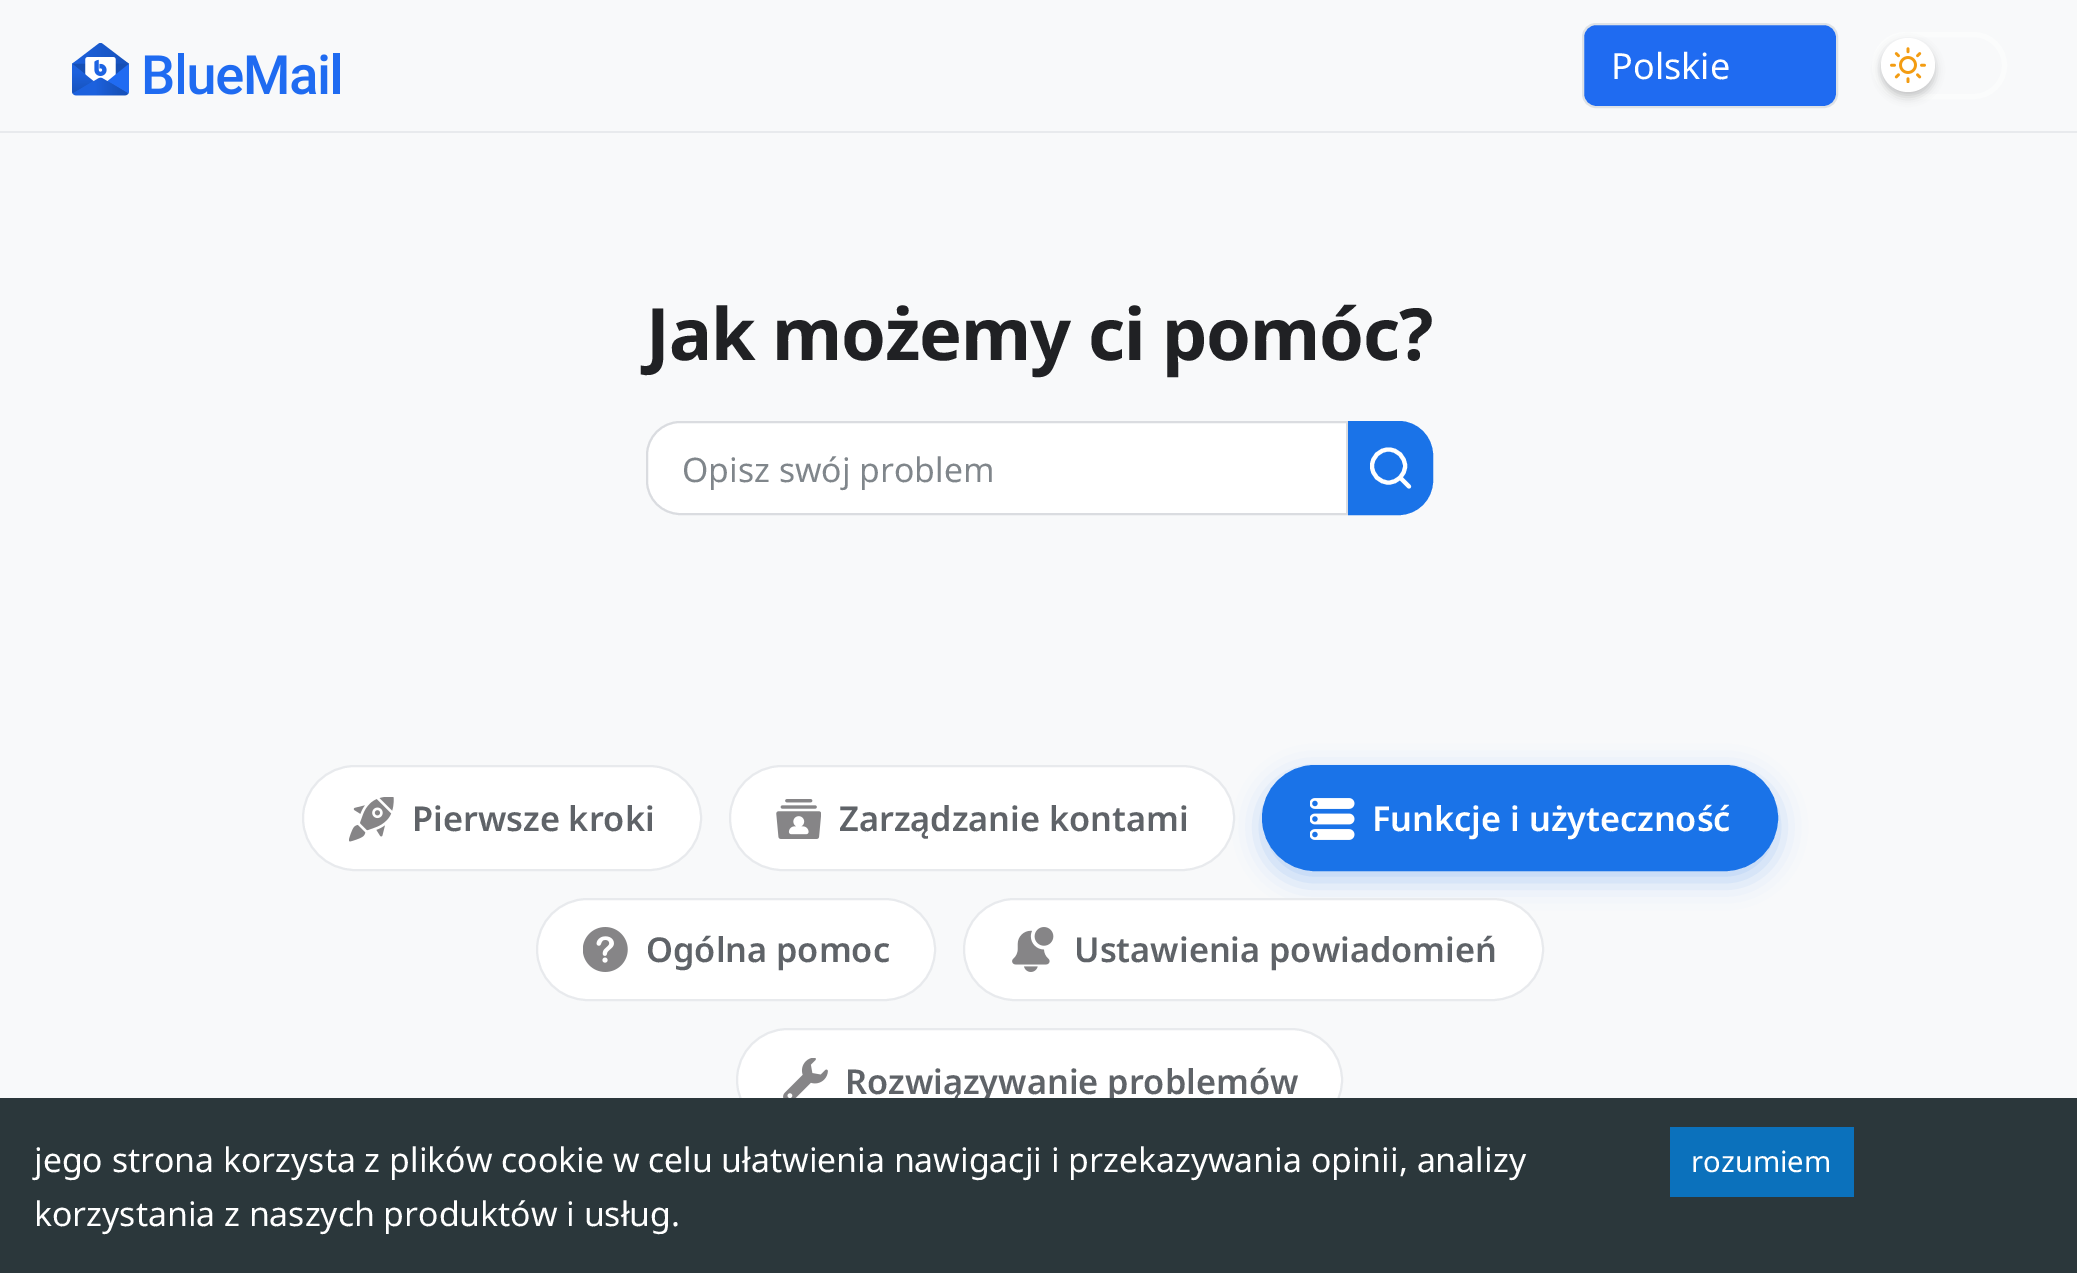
%!PS
<< /PageSize [2077 1273] /PageUsesTransparency true >> setpagedevice
/rgb { 3 { 255 div 3 1 roll } repeat setrgbcolor } def
/font { [ exch dup neg 0 0 3 -1 roll 0 0 ] selectfont } def
/text { moveto show } def
/alpha { dup .setfillconstantalpha .setstrokeconstantalpha } def
/circle { newpath 0 360 arc closepath } def
/roundrect { 5 dict begin { /r /h /w /y /x } { exch def } forall
  x r add y moveto x w add y 2 copy h add r arct x w add y h add x 1 index r arct
  x y h add x y r arct x y 2 copy exch w add exch r arct closepath end } def
/shadow { 12 dict begin { /a /b /q /h /w /y /x } { exch def } forall gsave /was 0 def
  9 -2 -9 { dup b mul 4 div /e exch def 1 sub .425 mul 2.718 exch exp 1 add a .99 .min exch div /now exch def
    1 1 now sub 1 was sub div sub alpha /was now def
    w h .min e 2 mul add 0 gt { x e sub y e sub w e 2 mul add h e 2 mul add
      q e add b .6 mul add w h .min 2 div e add .min 0 .max roundrect fill } if } for grestore end } def
/picture { 5 dict begin { /h /w /y /x /name } { exch def } forall
  gsave x y translate w h scale
  w h 8 [w 0 0 h 0 0] name (r) file false 3 colorimage grestore end } def
0 .pushpdf14devicefilter
0 1273 translate 1 -1 scale
4 setmiterlimit
248 249 250 rgb
0 0 2077 1273 rectfill
232 234 237 rgb
0 131 2077 2 rectfill
(img_01.rgb) 72 43 268 53 picture
31 107 241 rgb
1583 24 254 83 13 roundrect gsave fill grestore
222 226 230 rgb
2 setlinewidth
stroke
251 252 252 rgb
5 setlinewidth
1874.5 34.5 130 62 31 roundrect stroke
0 0 0 rgb
1881 43 54 54 27 4.5 0.2 shadow
255 255 255 rgb
1908 65 27 circle fill
(img_02.rgb) 1890 47 36 36 picture
680 422 moveto 667 0 rlineto 0 92 rlineto -667 0 rlineto -18 0 -33 -15 -33 -33 rcurveto 0 -26 rlineto 0 -18 15 -33 33 -33 rcurveto closepath gsave fill grestore
218 220 224 rgb
2 setlinewidth
stroke
26 115 232 rgb
1349 422 moveto 50 0 rlineto 18 0 33 15 33 33 rcurveto 0 26 rlineto 0 18 -15 33 -33 33 rcurveto -50 0 rlineto closepath gsave fill grestore
stroke
255 255 255 rgb
4.1 setlinewidth
1 setlinecap
1 setlinejoin
1388.5 482.5 moveto 9 0 16.5 -7.5 16.5 -16.5 rcurveto 0 -9 -7.5 -16.5 -16.5 -16.5 rcurveto -9 0 -16.5 7.5 -16.5 16.5 rcurveto 0 9 7.5 16.5 16.5 16.5 rcurveto closepath 1409 486.5 moveto -9 -9 rlineto stroke
303 766 398 104 52 roundrect gsave fill grestore
232 234 237 rgb
2 setlinewidth
0 setlinecap
0 setlinejoin
stroke
(img_03.rgb) 349 797 45 45 picture
255 255 255 rgb
730 766 504 104 52 roundrect gsave fill grestore
232 234 237 rgb
stroke
(img_04.rgb) 776 799 45 40 picture
26 115 232 rgb
1262 774 516 106 53 13.5 0.3 shadow
1263 766 514 104 52 roundrect gsave fill grestore
stroke
(img_05.rgb) 1310 798 45 42 picture
255 255 255 rgb
537 899 398 101 50.5 roundrect gsave fill grestore
232 234 237 rgb
stroke
(img_06.rgb) 583 927 45 45 picture
255 255 255 rgb
964 899 579 101 50.5 roundrect gsave fill grestore
232 234 237 rgb
stroke
(img_07.rgb) 1012 927 42 45 picture
255 255 255 rgb
737 1029 605 102 51 roundrect gsave fill grestore
232 234 237 rgb
stroke
(img_08.rgb) 783 1058 45 40 picture
/NotoSans-Regular 36 font
255 255 255 rgb
(Polskie) 1611 79 text
/NotoSans-Bold 72 font
32 33 36 rgb
646 360 moveto -1.1 0 (Jak możemy ci pomóc?) ashow
/NotoSans-Regular 33.75 font
128 134 139 rgb
(Opisz swój problem) 682 482 text
/NotoSans-SemiBold 34.25 font
95 99 104 rgb
(Pierwsze kroki) 412 831 text
(Zarządzanie kontami) 839 831 text
255 255 255 rgb
(Funkcje i użyteczność) 1372 831 text
95 99 104 rgb
(Ogólna pomoc) 646 962 text
(Ustawienia powiadomień) 1074 962 text
(Rozwiązywanie problemów) 845 1094 text
43 55 59 rgb
0 1098 2077 175 rectfill
11 113 188 rgb
1670 1127 184 70 rectfill
/NotoSans-Regular 29.25 font
255 255 255 rgb
(rozumiem) 1691 1172 text
/NotoSans-Regular 33.75 font
(korzystania z naszych produktów i usług.) 34 1226 text
(jego strona korzysta z plików cookie w celu ułatwienia nawigacji i przekazywania opinii, analizy) 34 1172 text
.poppdf14devicefilter showpage
